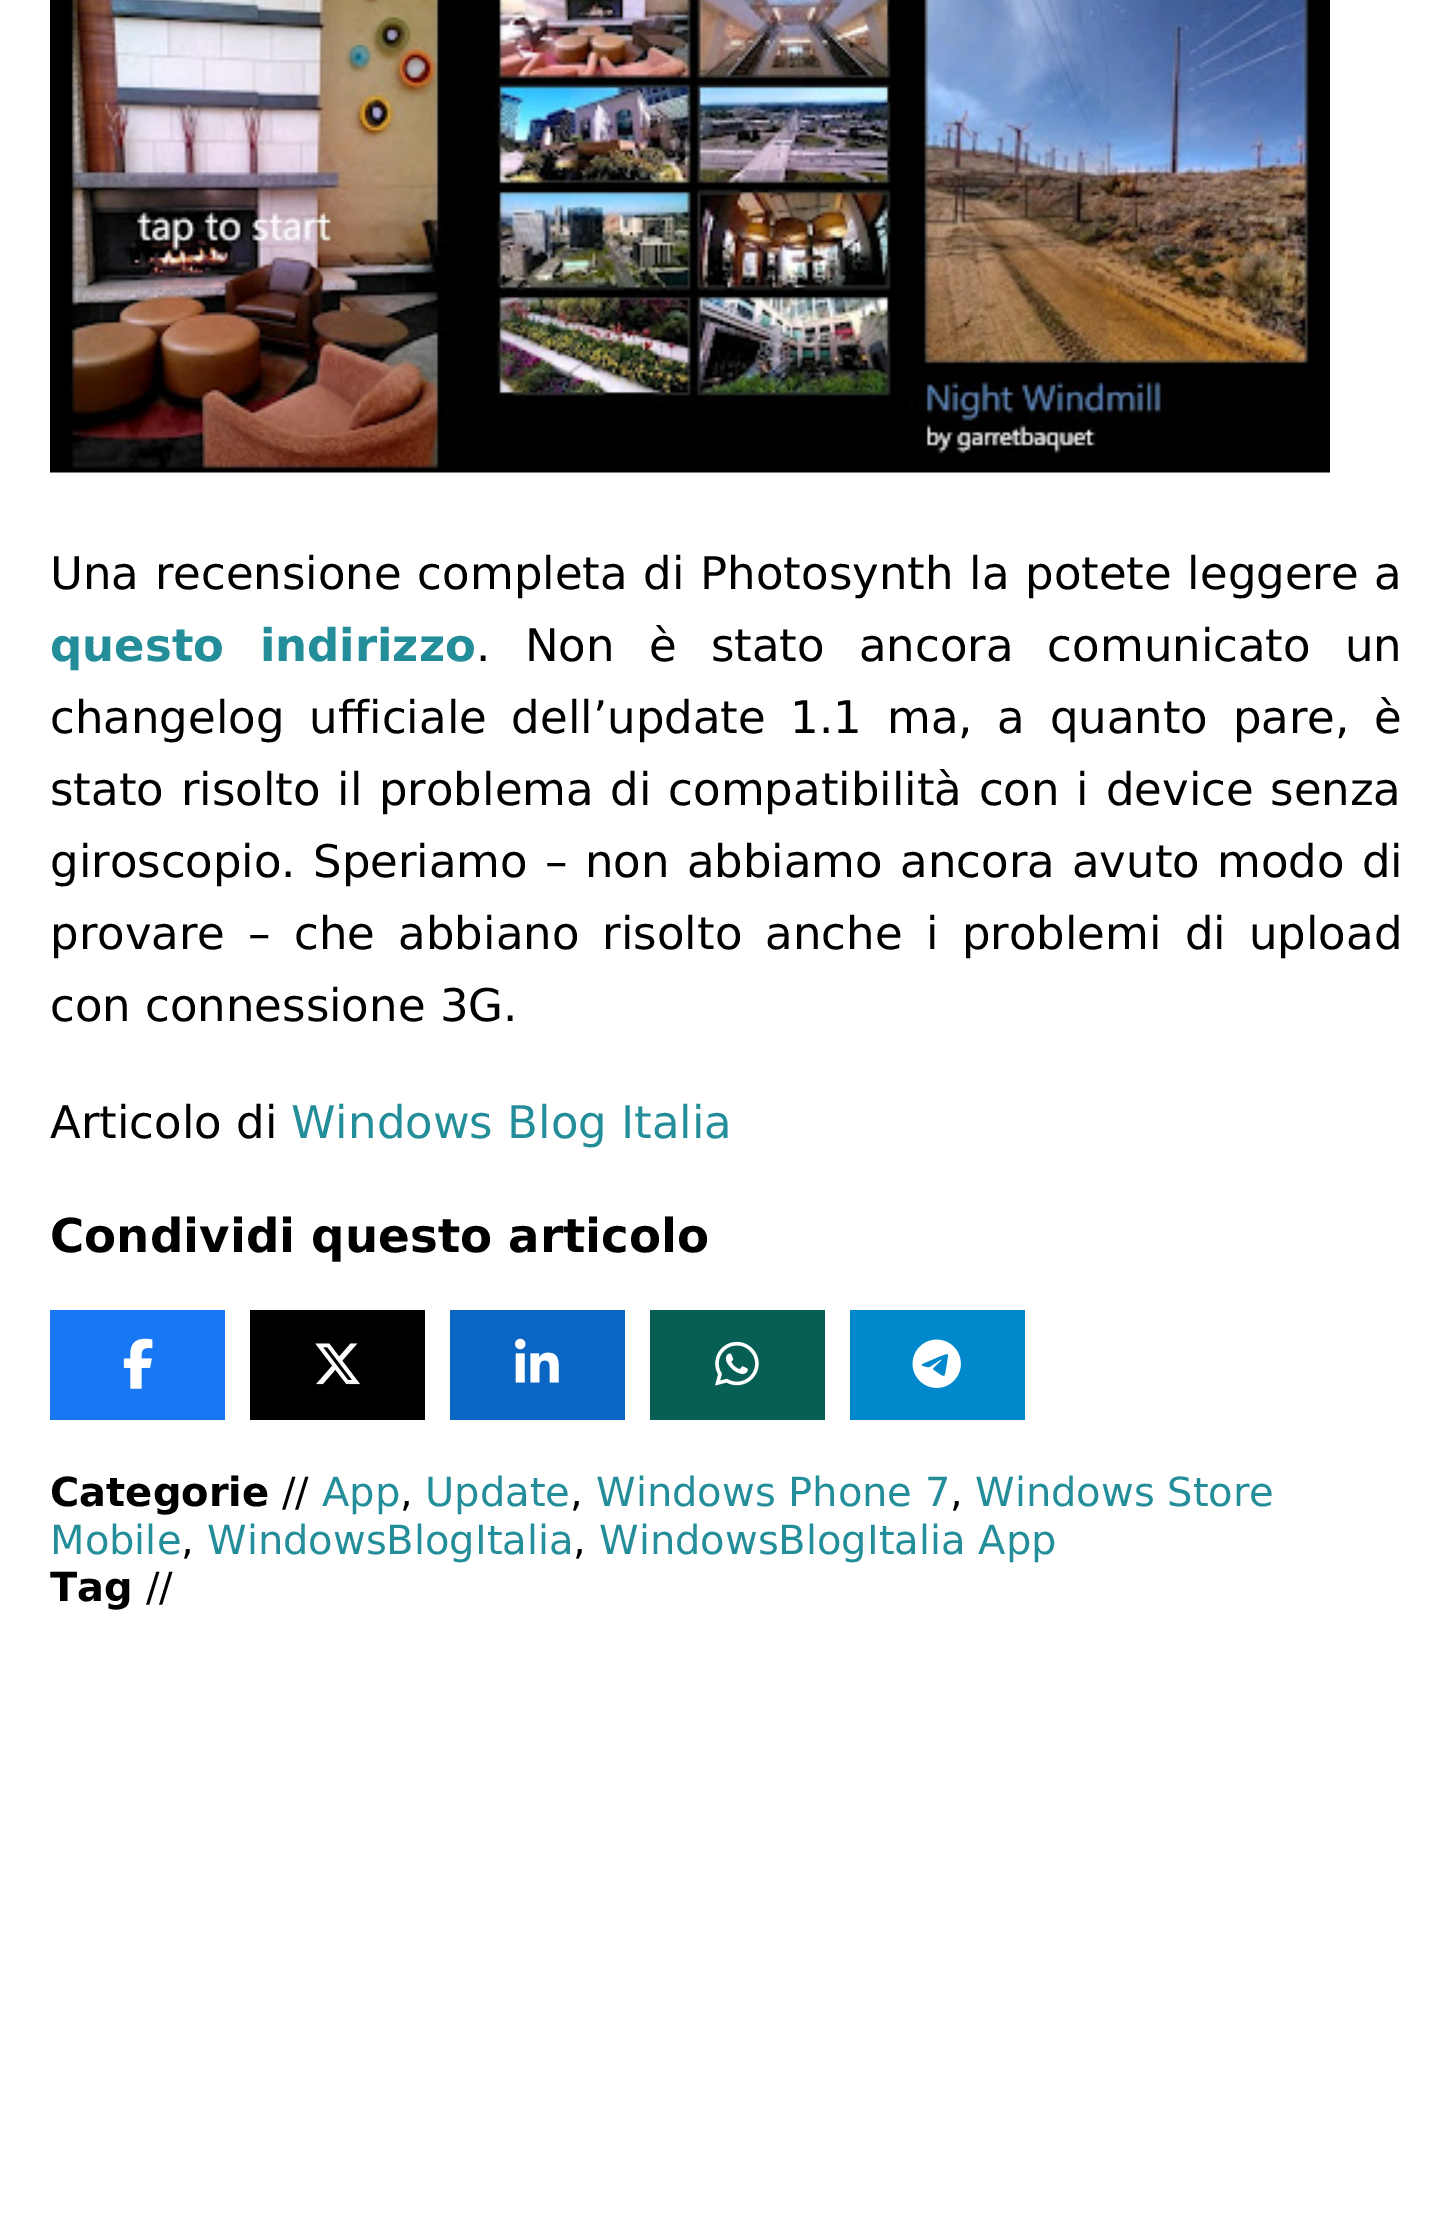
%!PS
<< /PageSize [1451 2233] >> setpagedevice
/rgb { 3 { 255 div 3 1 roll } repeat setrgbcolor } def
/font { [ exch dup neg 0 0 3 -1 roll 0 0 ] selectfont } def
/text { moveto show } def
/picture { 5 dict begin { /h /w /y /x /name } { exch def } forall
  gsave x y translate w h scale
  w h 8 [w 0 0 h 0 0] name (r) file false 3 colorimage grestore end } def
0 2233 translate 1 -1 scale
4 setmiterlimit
255 255 255 rgb
0 0 1451 2233 rectfill
(img_01.rgb) 50 0 1280 473 picture
24 119 242 rgb
50 1310 175 110 rectfill
(img_02.rgb) 123 1338 30 51 picture
0 0 0 rgb
250 1310 175 110 rectfill
(img_03.rgb) 315 1343 45 42 picture
10 102 194 rgb
450 1310 175 110 rectfill
(img_04.rgb) 515 1338 44 45 picture
7 94 84 rgb
650 1310 175 110 rectfill
(img_05.rgb) 715 1341 44 45 picture
0 136 204 rgb
850 1310 175 110 rectfill
(img_06.rgb) 912 1339 49 49 picture
/DejaVuSans-Regular 45 font
0 0 0 rgb
50 589 moveto 1.5 0 32 (Una recensione completa di Photosynth la potete leggere a) widthshow
/DejaVuSans-Bold 45 font
35 142 154 rgb
50 661 moveto 20 0 32 (questo indirizzo) widthshow
/DejaVuSans-Regular 45 font
0 0 0 rgb
476 661 moveto 20 0 32 (. Non è stato ancora comunicato un) widthshow
50 733 moveto 10.5 0 32 (changelog ufficiale dell’update 1.1 ma, a quanto pare, è) widthshow
50 805 moveto 2.5 0 32 (stato risolto il problema di compatibilità con i device senza) widthshow
50 877 moveto 3 0 32 (giroscopio. Speriamo – non abbiamo ancora avuto modo di) widthshow
50 949 moveto 9 0 32 (provare – che abbiano risolto anche i problemi di upload) widthshow
(con connessione 3G.) 50 1021 text
(Articolo di) 50 1138 text
35 142 154 rgb
(Windows Blog Italia) 291 1138 text
/DejaVuSans-Bold 46.75 font
0 0 0 rgb
(Condividi questo articolo) 50 1252 text
/DejaVuSans-Bold 40 font
(Categorie) 50 1506 text
/DejaVuSans-Regular 40 font
(//) 282 1506 text
35 142 154 rgb
(App) 322 1506 text
0 0 0 rgb
(,) 400 1506 text
35 142 154 rgb
(Update) 425 1506 text
0 0 0 rgb
(,) 570 1506 text
35 142 154 rgb
(Windows Phone 7) 596 1506 text
0 0 0 rgb
(,) 950 1506 text
35 142 154 rgb
(Windows Store) 975 1506 text
(Mobile) 50 1554 text
0 0 0 rgb
(,) 181 1554 text
35 142 154 rgb
(WindowsBlogItalia) 207 1554 text
0 0 0 rgb
(,) 573 1554 text
35 142 154 rgb
(WindowsBlogItalia App) 599 1554 text
/DejaVuSans-Bold 40 font
0 0 0 rgb
(Tag) 50 1601 text
/DejaVuSans-Regular 40 font
(//) 146 1601 text
showpage
